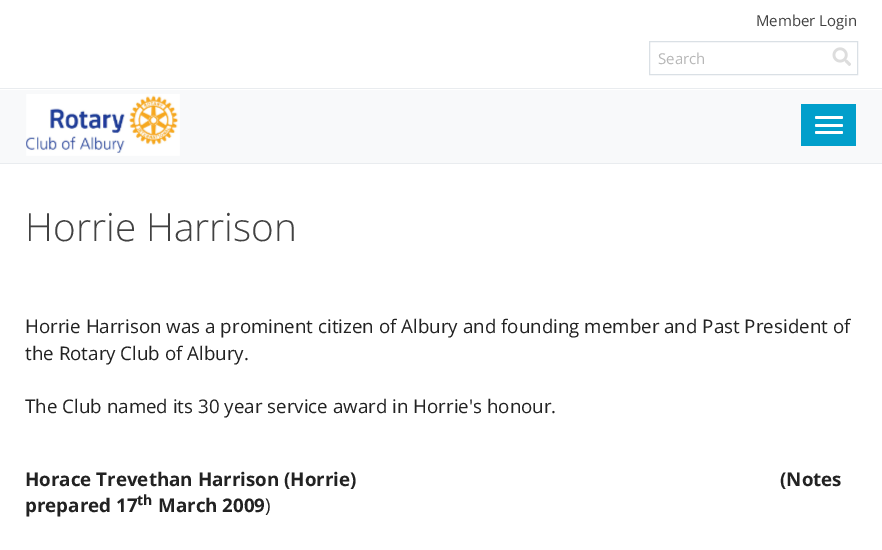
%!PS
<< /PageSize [882 550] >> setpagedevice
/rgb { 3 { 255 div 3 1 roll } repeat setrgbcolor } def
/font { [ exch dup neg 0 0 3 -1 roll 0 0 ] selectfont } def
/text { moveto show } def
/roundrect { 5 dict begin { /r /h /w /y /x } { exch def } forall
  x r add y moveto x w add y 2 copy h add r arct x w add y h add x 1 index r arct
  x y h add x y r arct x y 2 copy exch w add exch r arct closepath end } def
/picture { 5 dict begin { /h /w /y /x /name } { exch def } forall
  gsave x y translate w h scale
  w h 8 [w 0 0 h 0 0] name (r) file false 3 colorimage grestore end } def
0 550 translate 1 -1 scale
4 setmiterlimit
255 255 255 rgb
0 0 882 550 rectfill
218 224 229 rgb
649.5 41.5 208 33 rectstroke
(img_01.rgb) 832 47 19 19 picture
233 236 239 rgb
0 88 882 1 rectfill
248 249 250 rgb
0 90 882 73 rectfill
233 236 239 rgb
0 163 882 1 rectfill
(img_02.rgb) 26 94 154 62 picture
1 159 203 rgb
801 104 55 42 rectfill
255 255 255 rgb
815 116 28 3 1.5 roundrect fill
815 124 28 3 1.5 roundrect fill
815 131 28 3 1.5 roundrect fill
/OpenSans-Regular 15 font
66 66 66 rgb
(Member Login) 756 26 text
183 183 183 rgb
(Search) 658 64 text
/OpenSans-Light 38.75 font
66 66 66 rgb
(Horrie Harrison) 25 241 text
/OpenSans-Regular 18.75 font
34 34 34 rgb
(Horrie Harrison was a prominent citizen of Albury and founding member and Past President of) 25 333 text
(the Rotary Club of Albury.) 25 360 text
(The Club named its 30 year service award in Horrie's honour.) 25 413 text
/OpenSans-Bold 18.75 font
(Horace Trevethan Harrison \(Horrie\)) 25 486 text
(\(Notes) 780 486 text
(prepared 17) 25 512 text
/OpenSans-Bold 14 font
(th) 137 505 text
/OpenSans-Bold 18.75 font
(March 2009) 158 512 text
/OpenSans-Regular 18.75 font
(\)) 265 512 text
showpage
